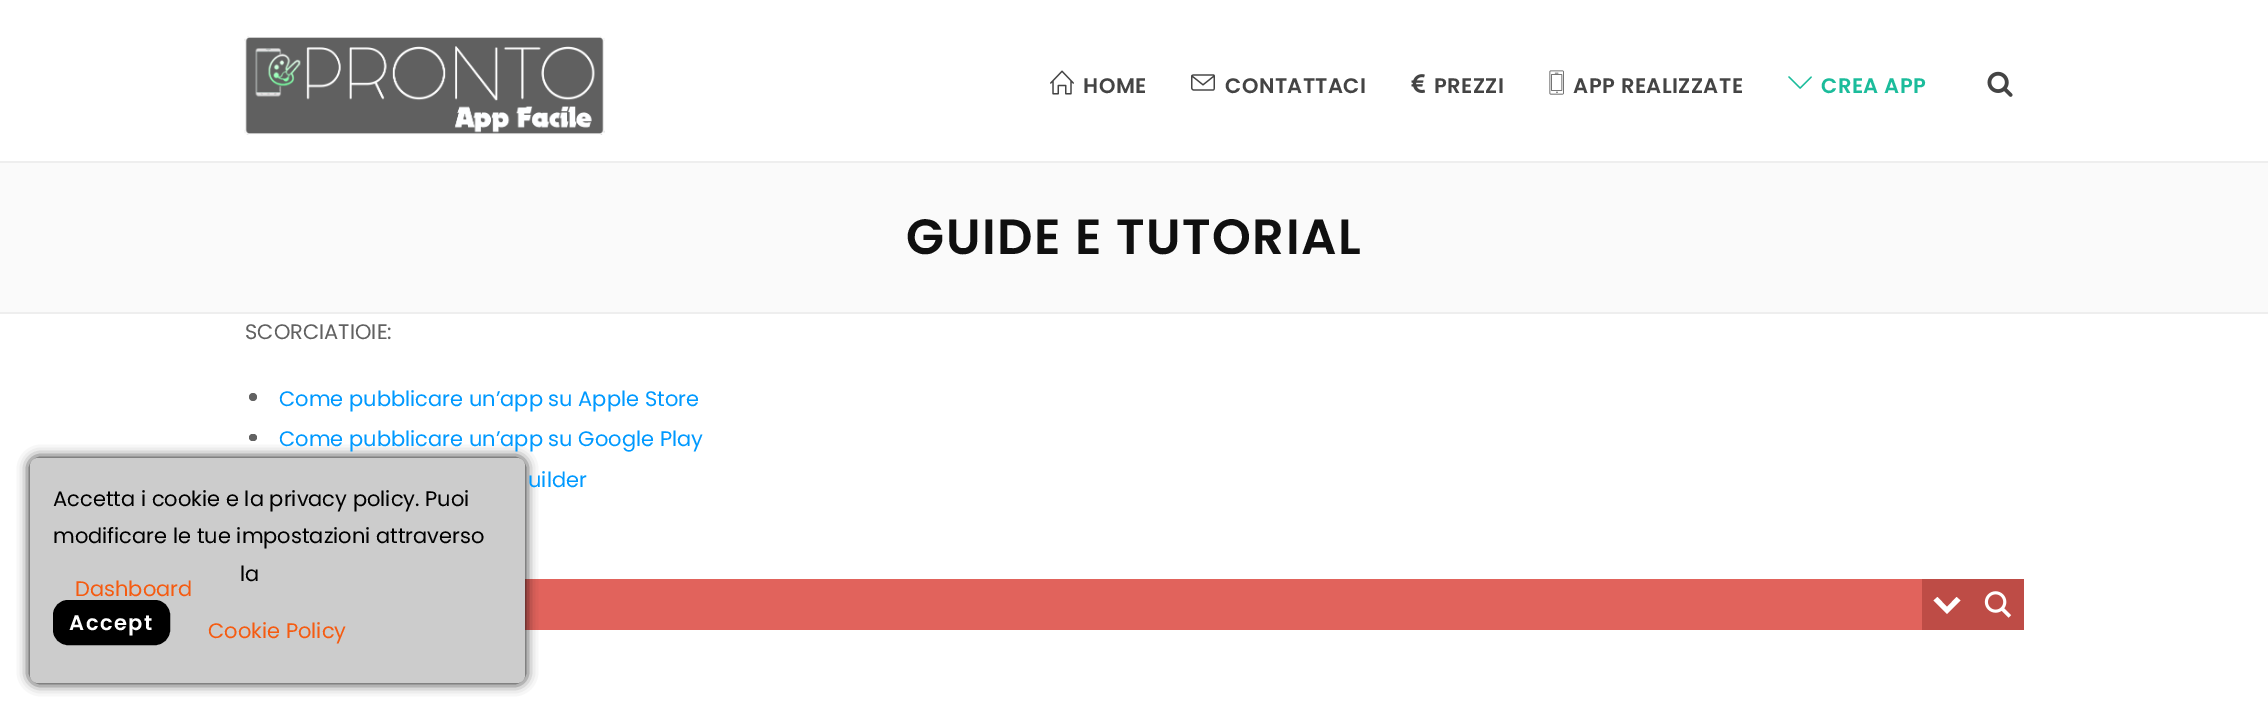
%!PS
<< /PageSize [2268 712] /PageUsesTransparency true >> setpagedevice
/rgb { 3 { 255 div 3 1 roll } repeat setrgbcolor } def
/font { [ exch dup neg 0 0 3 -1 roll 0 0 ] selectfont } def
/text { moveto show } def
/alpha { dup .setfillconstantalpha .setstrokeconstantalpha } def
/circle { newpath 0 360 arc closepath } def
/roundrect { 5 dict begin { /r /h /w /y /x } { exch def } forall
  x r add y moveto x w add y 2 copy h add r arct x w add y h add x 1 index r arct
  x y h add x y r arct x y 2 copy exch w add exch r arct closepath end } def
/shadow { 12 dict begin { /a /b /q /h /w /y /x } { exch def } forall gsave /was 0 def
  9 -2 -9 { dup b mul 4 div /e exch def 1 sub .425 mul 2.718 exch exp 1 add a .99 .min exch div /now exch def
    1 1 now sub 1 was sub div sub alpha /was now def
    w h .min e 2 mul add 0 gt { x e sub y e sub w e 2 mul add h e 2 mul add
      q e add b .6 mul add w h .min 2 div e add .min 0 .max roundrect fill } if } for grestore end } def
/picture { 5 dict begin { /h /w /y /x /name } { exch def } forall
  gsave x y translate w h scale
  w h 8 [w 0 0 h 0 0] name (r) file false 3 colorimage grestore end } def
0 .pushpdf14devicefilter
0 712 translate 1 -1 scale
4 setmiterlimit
255 255 255 rgb
0 0 2268 712 rectfill
(img_01.rgb) 244 36 361 99 picture
(img_02.rgb) 1050 70 24 25 picture
(img_03.rgb) 1191 74 24 17 picture
(img_04.rgb) 1411 74 14 19 picture
(img_05.rgb) 1549 70 15 25 picture
(img_06.rgb) 1788 76 24 13 picture
(img_07.rgb) 1987 71 26 26 picture
250 250 250 rgb
0 163 2268 149 rectfill
238 238 238 rgb
0 161 2268 2 rectfill
0 312 2268 2 rectfill
98 98 98 rgb
253 397 4 circle fill
249 434 8 7 3.5 roundrect fill
225 99 92 rgb
525 579 1397 51 rectfill
190 76 70 rgb
1922 579 102 51 rectfill
255 255 255 rgb
1956.5 597 moveto 4 3.5 rlineto -13.5 13.5 rlineto -13.5 -13.5 rlineto 4 -3.5 rlineto 9.5 10 rlineto closepath fill
(img_08.rgb) 1984 591 28 27 picture
0 0 0 rgb
30 458 495 225 8 6 1 shadow
204 204 204 rgb
30 458 495 225 8 roundrect fill
0 0 0 rgb
54 601 115 43 14 roundrect gsave fill grestore
2 setlinewidth
stroke
/Poppins-SemiBold 21 font
68 68 68 rgb
1083 93 moveto 0.5 0 (HOME) ashow
1225 93 moveto 0.5 0 (CONTATTACI) ashow
1434 93 moveto 0.5 0 (PREZZI) ashow
1573 93 moveto 0.5 0 (APP REALIZZATE) ashow
27 188 155 rgb
1821 93 moveto 0.5 0 (CREA APP) ashow
/Poppins-SemiBold 49.5 font
16 16 16 rgb
906 254 moveto 1.5 0 (GUIDE E TUTORIAL) ashow
/Poppins-Regular 21 font
97 97 97 rgb
(SCORCIATIOIE:) 245 339 text
0 153 255 rgb
(Come pubblicare un’app su Apple Store) 279 406 text
(Come pubblicare un’app su Google Play) 279 446 text
(uilder) 528 487 text
0 0 0 rgb
(Accetta i cookie e la privacy policy. Puoi) 53 506 text
(modificare le tue impostazioni attraverso) 53 543 text
(la) 240 581 text
245 91 17 rgb
(Dashboard) 75 596 text
/Poppins-SemiBold 21 font
255 255 255 rgb
69 630 moveto 1.5 0 (Accept) ashow
/Poppins-Regular 21 font
245 91 17 rgb
(Cookie Policy) 208 638 text
.poppdf14devicefilter showpage
